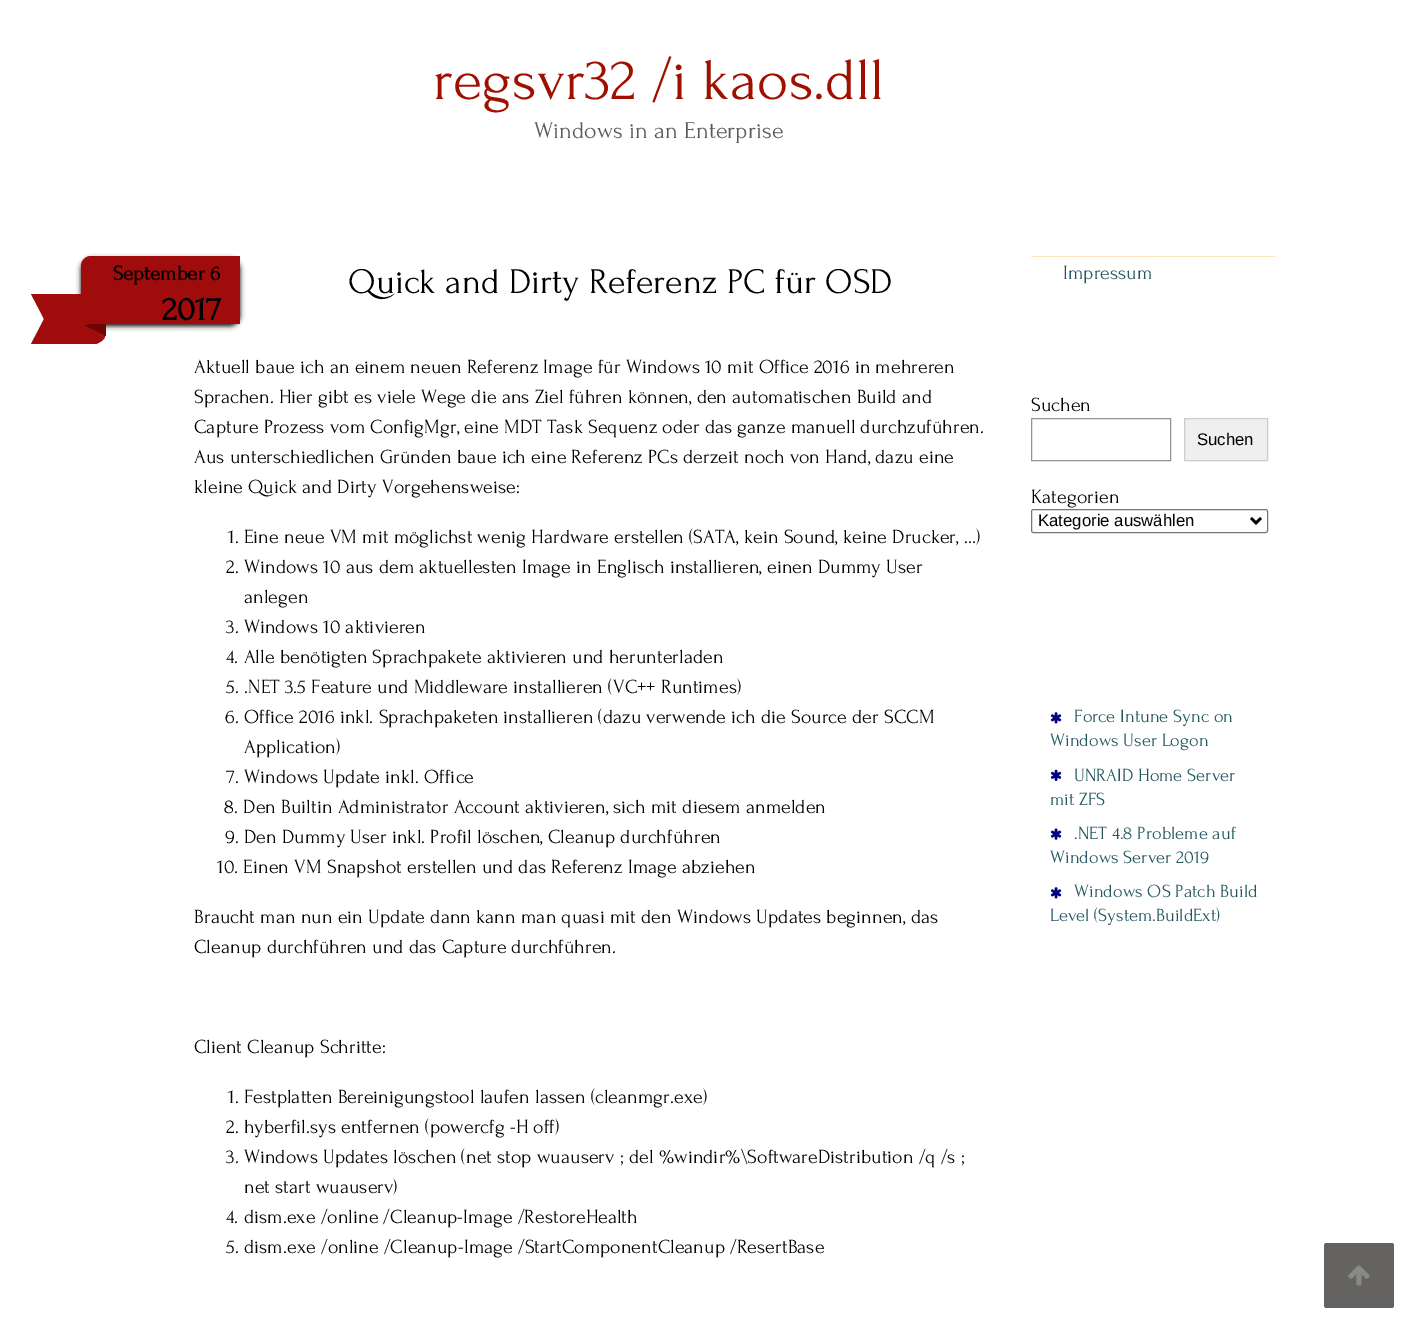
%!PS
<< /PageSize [1412 1320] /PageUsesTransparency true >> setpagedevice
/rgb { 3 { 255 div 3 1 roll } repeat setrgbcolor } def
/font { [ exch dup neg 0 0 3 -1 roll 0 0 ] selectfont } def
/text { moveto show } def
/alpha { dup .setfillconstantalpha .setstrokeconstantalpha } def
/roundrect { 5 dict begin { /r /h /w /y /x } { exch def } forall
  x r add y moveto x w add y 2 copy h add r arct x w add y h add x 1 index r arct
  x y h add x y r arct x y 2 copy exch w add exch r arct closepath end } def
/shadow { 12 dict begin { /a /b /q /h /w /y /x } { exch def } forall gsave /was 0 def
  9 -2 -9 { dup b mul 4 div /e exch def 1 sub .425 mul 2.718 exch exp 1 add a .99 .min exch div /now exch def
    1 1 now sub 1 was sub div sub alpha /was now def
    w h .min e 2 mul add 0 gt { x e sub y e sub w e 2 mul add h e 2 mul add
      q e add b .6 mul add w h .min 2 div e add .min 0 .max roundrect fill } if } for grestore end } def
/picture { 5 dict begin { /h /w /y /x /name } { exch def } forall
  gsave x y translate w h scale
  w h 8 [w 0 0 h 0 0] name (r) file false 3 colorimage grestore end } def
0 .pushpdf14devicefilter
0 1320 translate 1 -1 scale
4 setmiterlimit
255 255 255 rgb
0 0 1412 1320 rectfill
17 3 3 rgb
81 259 159 67 10 2.5 1 shadow
160 11 11 rgb
91 256 moveto 148 0 rlineto 0.5 0 1 0.5 1 1 rcurveto 0 66 rlineto 0 0.5 -0.5 1 -1 1 rcurveto -157 0 rlineto -0.5 0 -1 -0.5 -1 -1 rcurveto 0 -57 rlineto 0 -5.5 4.5 -10 10 -10 rcurveto closepath fill
106 294 moveto -12 25 rlineto -50 0 rlineto -13 -25 rlineto closepath fill
104 339 moveto 1 -2 2 -5 2 -8 rcurveto 0 -37 rlineto -12 25 rlineto closepath fill
104 339 moveto -2 2 -5 4 -8 5 rcurveto -65 0 rlineto 13 -25 rlineto 50 0 rlineto closepath fill
109 4 4 rgb
91 324 moveto 15 0 rlineto -12 6 rlineto -9 -4.5 rlineto 2 -1 4 -1.5 6 -1.5 rcurveto closepath fill
94 330 moveto 12 6 rlineto 0 -12 rlineto closepath fill
255 229 190 rgb
1031 256 244 1 rectfill
148 148 148 rgb
1031.5 418.5 139 42 rectstroke
239 239 239 rgb
1184.5 418.5 moveto 83 0 rlineto 0 42 rlineto -83 0 rlineto closepath gsave fill grestore
204 204 204 rgb
stroke
118 118 118 rgb
1031.5 509.5 236 23 2 roundrect stroke
0 0 0 rgb
2.5 setlinewidth
1251 518 moveto 5 5 rlineto 5 -5 rlineto stroke
(img_01.rgb) 1050 712 12 12 picture
(img_02.rgb) 1050 769 12 12 picture
(img_03.rgb) 1050 828 12 12 picture
(img_01.rgb) 1050 887 12 12 picture
101 98 98 rgb
1324 1243 70 65 2.5 roundrect fill
(img_04.rgb) 1348 1265 22 21 picture
/Forum-Regular 60 font
160 16 0 rgb
(regsvr32 /i kaos.dll) 433 99 text
/Forum-Regular 24 font
89 89 89 rgb
(Windows in an Enterprise) 534 138 text
/Forum-Bold 21 font
0 0 0 rgb
(September 6) 113 280 text
/Forum-Bold 34 font
(2017) 162 320 text
/Forum-Regular 36 font
(Quick and Dirty Referenz PC für OSD) 348 293 text
/Forum-Regular 20 font
(Aktuell baue ich an einem neuen Referenz Image für Windows 10 mit Office 2016 in mehreren) 194 373 text
(Sprachen. Hier gibt es viele Wege die ans Ziel führen können, den automatischen Build and) 194 403 text
(Capture Prozess vom ConfigMgr, eine MDT Task Sequenz oder das ganze manuell durchzuführen.) 194 433 text
(Aus unterschiedlichen Gründen baue ich eine Referenz PCs derzeit noch von Hand, dazu eine) 194 463 text
(kleine Quick and Dirty Vorgehensweise:) 194 493 text
(1. Eine neue VM mit möglichst wenig Hardware erstellen \(SATA, kein Sound, keine Drucker, …\)) 228 543 text
(2. Windows 10 aus dem aktuellesten Image in Englisch installieren, einen Dummy User) 226 573 text
(anlegen) 244 603 text
(3. Windows 10 aktivieren) 226 633 text
(4. Alle benötigten Sprachpakete aktivieren und herunterladen) 226 663 text
(5. .NET 3.5 Feature und Middleware installieren \(VC++ Runtimes\)) 226 693 text
(6. Office 2016 inkl. Sprachpaketen installieren \(dazu verwende ich die Source der SCCM) 225 723 text
(Application\)) 244 753 text
(7. Windows Update inkl. Office) 226 783 text
(8. Den Builtin Administrator Account aktivieren, sich mit diesem anmelden) 224 813 text
(9. Den Dummy User inkl. Profil löschen, Cleanup durchführen) 225 843 text
(10. Einen VM Snapshot erstellen und das Referenz Image abziehen) 217 873 text
(Braucht man nun ein Update dann kann man quasi mit den Windows Updates beginnen, das) 194 923 text
(Cleanup durchführen und das Capture durchführen.) 194 953 text
(Client Cleanup Schritte:) 194 1053 text
(1. Festplatten Bereinigungstool laufen lassen \(cleanmgr.exe\)) 228 1103 text
(2. hyberfil.sys entfernen \(powercfg -H off\)) 226 1133 text
(3. Windows Updates löschen \(net stop wuauserv ; del %windir%\\SoftwareDistribution /q /s ;) 226 1163 text
(net start wuauserv\)) 244 1193 text
(4. dism.exe /online /Cleanup-Image /RestoreHealth) 226 1223 text
(5. dism.exe /online /Cleanup-Image /StartComponentCleanup /ResertBase) 226 1253 text
33 86 94 rgb
(Impressum) 1063 279 text
0 0 0 rgb
(Suchen) 1031 411 text
/LiberationSans-Regular 16.75 font
(Suchen) 1197 445 text
/Forum-Regular 20 font
(Kategorien) 1031 503 text
/LiberationSans-Regular 16.75 font
(Kategorie auswählen) 1038 526 text
/Forum-Regular 18.5 font
33 86 94 rgb
(Force Intune Sync on) 1074 722 text
(Windows User Logon) 1050 746 text
(UNRAID Home Server) 1074 781 text
(mit ZFS) 1050 805 text
(.NET 4.8 Probleme auf) 1074 839 text
(Windows Server 2019) 1050 863 text
(Windows OS Patch Build) 1074 897 text
(Level \(System.BuildExt\)) 1050 921 text
.poppdf14devicefilter showpage
